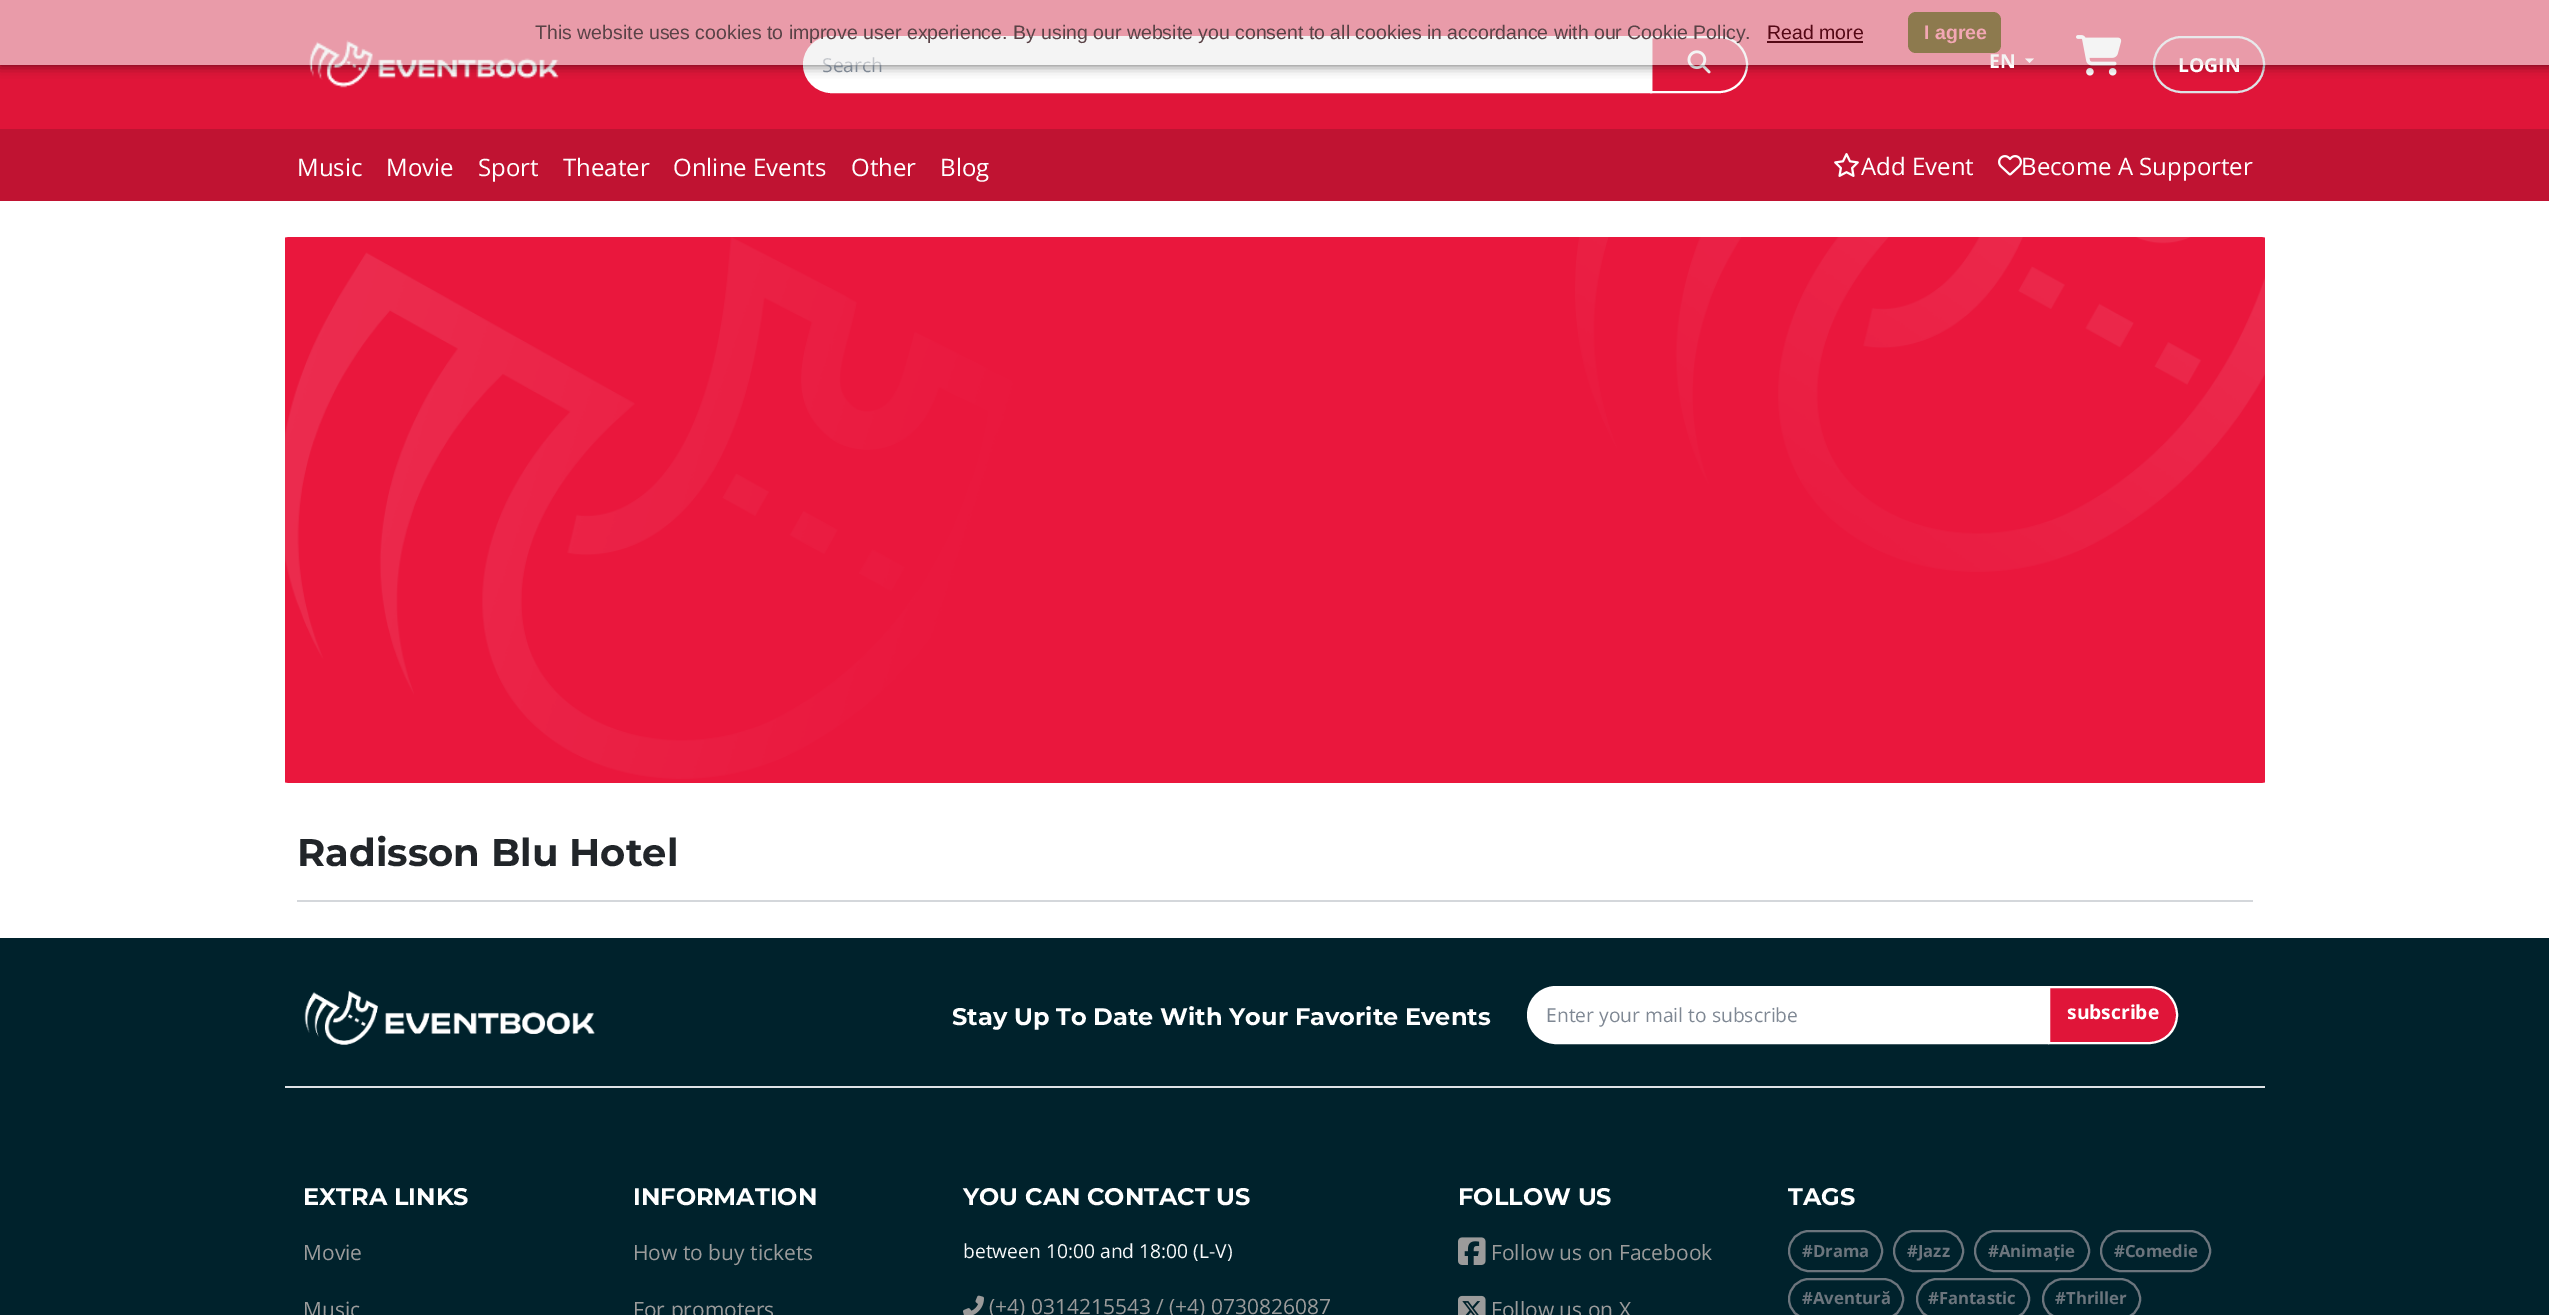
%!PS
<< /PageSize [2549 1315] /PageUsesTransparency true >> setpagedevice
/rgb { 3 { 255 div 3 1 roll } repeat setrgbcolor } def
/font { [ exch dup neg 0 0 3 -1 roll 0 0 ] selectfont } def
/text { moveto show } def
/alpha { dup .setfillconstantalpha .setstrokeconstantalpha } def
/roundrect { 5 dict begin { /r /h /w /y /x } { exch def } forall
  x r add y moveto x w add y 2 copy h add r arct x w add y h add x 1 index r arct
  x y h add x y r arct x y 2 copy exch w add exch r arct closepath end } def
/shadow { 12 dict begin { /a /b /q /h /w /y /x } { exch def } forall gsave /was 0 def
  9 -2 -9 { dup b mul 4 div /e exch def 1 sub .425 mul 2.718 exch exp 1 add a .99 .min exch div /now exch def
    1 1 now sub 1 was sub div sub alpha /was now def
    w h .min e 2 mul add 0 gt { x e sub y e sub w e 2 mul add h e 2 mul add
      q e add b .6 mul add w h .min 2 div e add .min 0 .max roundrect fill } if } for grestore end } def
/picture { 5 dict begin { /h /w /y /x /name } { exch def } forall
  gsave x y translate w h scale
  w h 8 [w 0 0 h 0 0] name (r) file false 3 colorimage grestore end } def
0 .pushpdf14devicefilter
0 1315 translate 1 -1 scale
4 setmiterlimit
255 255 255 rgb
0 0 2549 1315 rectfill
224 21 57 rgb
0 0 2549 129 rectfill
(img_01.rgb) 309 40 250 48 picture
255 255 255 rgb
831.5 37 moveto 819.5 0 rlineto 0 55 rlineto -819.5 0 rlineto -15 0 -27.5 -12.5 -27.5 -27.5 rcurveto 0 -15 12.5 -27.5 27.5 -27.5 rcurveto closepath gsave fill grestore
2 setlinewidth
stroke
1651 37 moveto 68.5 0 rlineto 15 0 27.5 12.5 27.5 27.5 rcurveto 0 15 -12.5 27.5 -27.5 27.5 rcurveto -68.5 0 rlineto closepath stroke
(img_02.rgb) 1687 50 24 24 picture
2025 58.5 moveto 9 0 rlineto -4.5 4.5 rlineto closepath fill
(img_03.rgb) 2076 35 46 41 picture
222 226 230 rgb
2154 37 110 55 27.5 roundrect stroke
gsave
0 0 moveto 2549 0 rlineto 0 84 rlineto -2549 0 rlineto closepath 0 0 moveto 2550 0 rlineto 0 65 rlineto -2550 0 rlineto closepath eoclip newpath
0 0 0 rgb
0 0 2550 65 0 6 0.62 shadow
grestore
192 19 50 rgb
0 129 2549 72 rectfill
(img_04.rgb) 1834 153 25 24 picture
(img_05.rgb) 1998 155 24 21 picture
(img_06.rgb) 285 237 1980 546 picture
212 215 219 rgb
297 900 1956 2 rectfill
0 34 44 rgb
0 938 2549 377 rectfill
(img_07.rgb) 304 990 291 55 picture
255 255 255 rgb
1556 987 moveto 492 0 rlineto 0 56 rlineto -492 0 rlineto -15.5 0 -28 -12.5 -28 -28 rcurveto 0 -15.5 12.5 -28 28 -28 rcurveto closepath gsave fill grestore
stroke
224 21 57 rgb
2049 987 moveto 100 0 rlineto 15.5 0 28 12.5 28 28 rcurveto 0 15.5 -12.5 28 -28 28 rcurveto -100 0 rlineto closepath gsave fill grestore
255 255 255 rgb
stroke
222 226 230 rgb
285 1086 1980 2 rectfill
(img_08.rgb) 963 1295 21 20 picture
(img_09.rgb) 1458 1237 28 28 picture
(img_10.rgb) 1458 1295 28 20 picture
108 117 125 rgb
1789 1231 93 40 20 roundrect stroke
1894 1231 69 40 20 roundrect stroke
1975 1231 114 40 20 roundrect stroke
2101 1231 109 40 20 roundrect stroke
1789 1279 114 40 20 roundrect stroke
1917 1279 112 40 20 roundrect stroke
2043 1279 97 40 20 roundrect stroke
/OpenSans-Regular 19.25 font
127 136 148 rgb
(Search) 822 72 text
/OpenSans-Bold 19.25 font
255 255 255 rgb
(EN) 1989 68 text
(LOGIN) 2178 72 text
0.62 alpha
238 238 238 rgb
0 0 2549 65 rectfill
1 alpha
141 122 78 rgb
1908 12 93 41 8 roundrect fill
/LiberationSans-Bold 19.5 font
243 167 180 rgb
(I agree) 1924 39 text
/LiberationSans-Regular 19.5 font
84 8 21 rgb
(Read more) 1767 39 text
1767 41 96 2 rectfill
89 66 70 rgb
(This website uses cookies to improve user experience. By using our website you consent to all cookies in accordance with our Cookie Policy.) 535 39 text
/OpenSans-Regular 24 font
255 255 255 rgb
(Music) 297 176 text
(Movie) 386 176 text
(Sport) 478 176 text
(Theater) 563 176 text
(Online Events) 673 176 text
(Other) 851 176 text
(Blog) 940 176 text
(Add Event) 1861 175 text
(Become A Supporter) 2021 175 text
/Montserrat-Bold 38.5 font
33 37 41 rgb
(Radisson Blu Hotel) 297 866 text
/Montserrat-Bold 24 font
255 255 255 rgb
(Stay Up To Date With Your Favorite Events) 952 1025 text
/OpenSans-Regular 19.25 font
127 136 148 rgb
(Enter your mail to subscribe) 1546 1022 text
/OpenSans-Bold 19.25 font
255 255 255 rgb
(subscribe) 2067 1019 text
/Montserrat-Bold 24 font
(EXTRA LINKS) 303 1205 text
/OpenSans-Regular 21 font
155 155 155 rgb
(Movie) 303 1260 text
(Music) 303 1317 text
/Montserrat-Bold 24 font
255 255 255 rgb
(INFORMATION) 633 1205 text
/OpenSans-Regular 21 font
155 155 155 rgb
(How to buy tickets) 633 1260 text
(For promoters) 633 1317 text
/Montserrat-Bold 24 font
255 255 255 rgb
(YOU CAN CONTACT US) 963 1205 text
/OpenSans-Regular 19.25 font
248 249 250 rgb
(between 10:00 and 18:00 \(L-V\)) 963 1258 text
/OpenSans-Regular 21 font
155 155 155 rgb
(\(+4\) 0314215543) 989 1314 text
(/ \(+4\) 0730826087) 1156 1314 text
/Montserrat-Bold 24 font
255 255 255 rgb
(FOLLOW US) 1458 1205 text
/OpenSans-Regular 21 font
155 155 155 rgb
(Follow us on Facebook) 1491 1260 text
(Follow us on X) 1491 1317 text
/Montserrat-Bold 24 font
255 255 255 rgb
(TAGS) 1788 1205 text
/OpenSans-Bold 16.75 font
108 117 125 rgb
(#Drama) 1802 1257 text
(#Jazz) 1907 1257 text
(#Animație) 1988 1257 text
(#Comedie) 2114 1257 text
(#Aventură) 1802 1304 text
(#Fantastic) 1928 1304 text
(#Thriller) 2055 1304 text
.poppdf14devicefilter showpage
